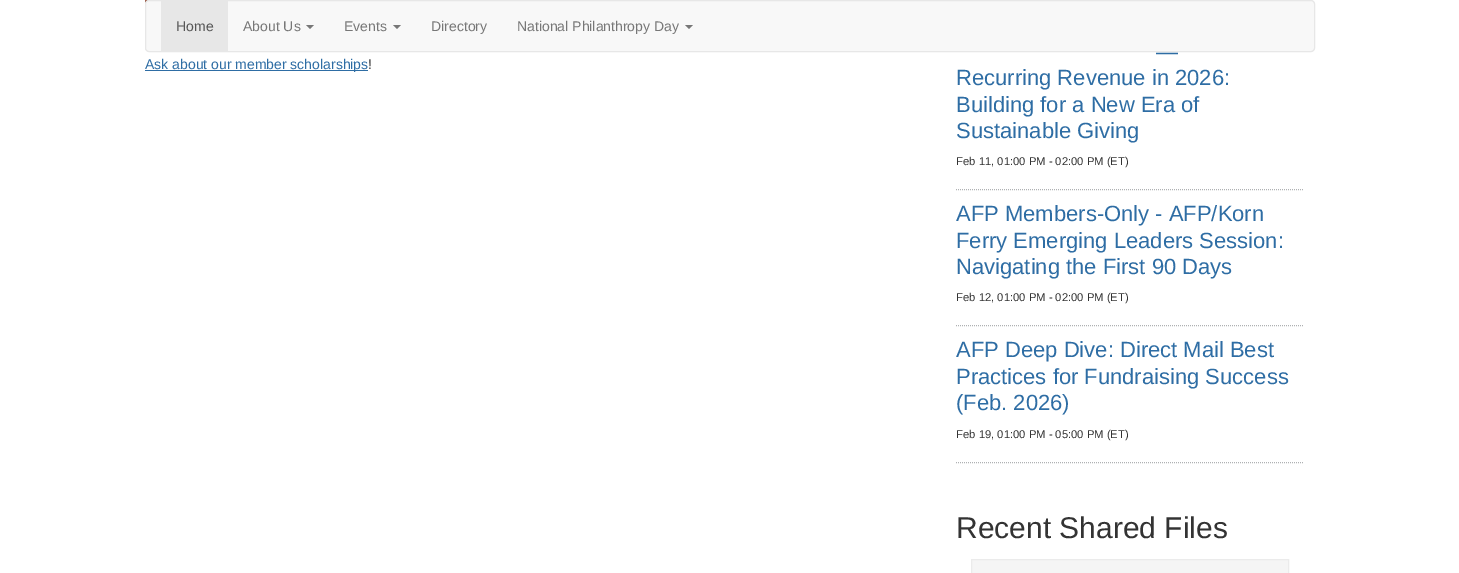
%!PS
<< /PageSize [1459 573] >> setpagedevice
/rgb { 3 { 255 div 3 1 roll } repeat setrgbcolor } def
/font { [ exch dup neg 0 0 3 -1 roll 0 0 ] selectfont } def
/text { moveto show } def
/roundrect { 5 dict begin { /r /h /w /y /x } { exch def } forall
  x r add y moveto x w add y 2 copy h add r arct x w add y h add x 1 index r arct
  x y h add x y r arct x y 2 copy exch w add exch r arct closepath end } def
/picture { 5 dict begin { /h /w /y /x /name } { exch def } forall
  gsave x y translate w h scale
  w h 8 [w 0 0 h 0 0] name (r) file false 3 colorimage grestore end } def
0 573 translate 1 -1 scale
4 setmiterlimit
255 255 255 rgb
0 0 1459 573 rectfill
(img_01.rgb) 145 0 4 4 picture
248 248 248 rgb
145.5 0.5 1169 51 3.5 roundrect gsave fill grestore
231 231 231 rgb
stroke
161 1 67 50 rectfill
119 119 119 rgb
306 25 moveto 8 0 rlineto -4 4 rlineto closepath fill
393 25 moveto 8 0 rlineto -4 4 rlineto closepath fill
685 25 moveto 8 0 rlineto -4 4 rlineto closepath fill
46 109 164 rgb
145 70 223 1 rectfill
175 177 179 rgb
[1 1] 0 setdash
956 189.5 moveto 348 0 rlineto stroke
956 325.5 moveto 348 0 rlineto stroke
956 462.5 moveto 348 0 rlineto stroke
245 245 245 rgb
971.5 559.5 moveto 317 0 rlineto 0 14 rlineto -317 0 rlineto closepath gsave fill grestore
235 235 235 rgb
[] 0 setdash
stroke
/LiberationSans-Regular 14 font
85 85 85 rgb
(Home) 176 31 text
119 119 119 rgb
(About Us) 243 31 text
(Events) 344 31 text
(Directory) 431 31 text
(National Philanthropy Day) 517 31 text
46 109 164 rgb
(Ask about our member scholarships) 145 69 text
51 51 51 rgb
(!) 368 69 text
/LiberationSans-Regular 22 font
46 109 164 rgb
(—) 1156 59 text
(Recurring Revenue in 2026:) 956 85 text
(Building for a New Era of) 956 112 text
(Sustainable Giving) 956 138 text
/LiberationSans-Regular 11.25 font
51 51 51 rgb
(Feb 11, 01:00 PM - 02:00 PM \(ET\)) 956 165 text
/LiberationSans-Regular 22 font
46 109 164 rgb
(AFP Members-Only - AFP/Korn) 956 221 text
(Ferry Emerging Leaders Session:) 956 248 text
(Navigating the First 90 Days) 956 274 text
/LiberationSans-Regular 11.25 font
51 51 51 rgb
(Feb 12, 01:00 PM - 02:00 PM \(ET\)) 956 301 text
/LiberationSans-Regular 22 font
46 109 164 rgb
(AFP Deep Dive: Direct Mail Best) 956 357 text
(Practices for Fundraising Success) 956 384 text
(\(Feb. 2026\)) 956 410 text
/LiberationSans-Regular 11.25 font
51 51 51 rgb
(Feb 19, 01:00 PM - 05:00 PM \(ET\)) 956 438 text
/LiberationSans-Regular 30 font
(Recent Shared Files) 956 538 text
showpage
